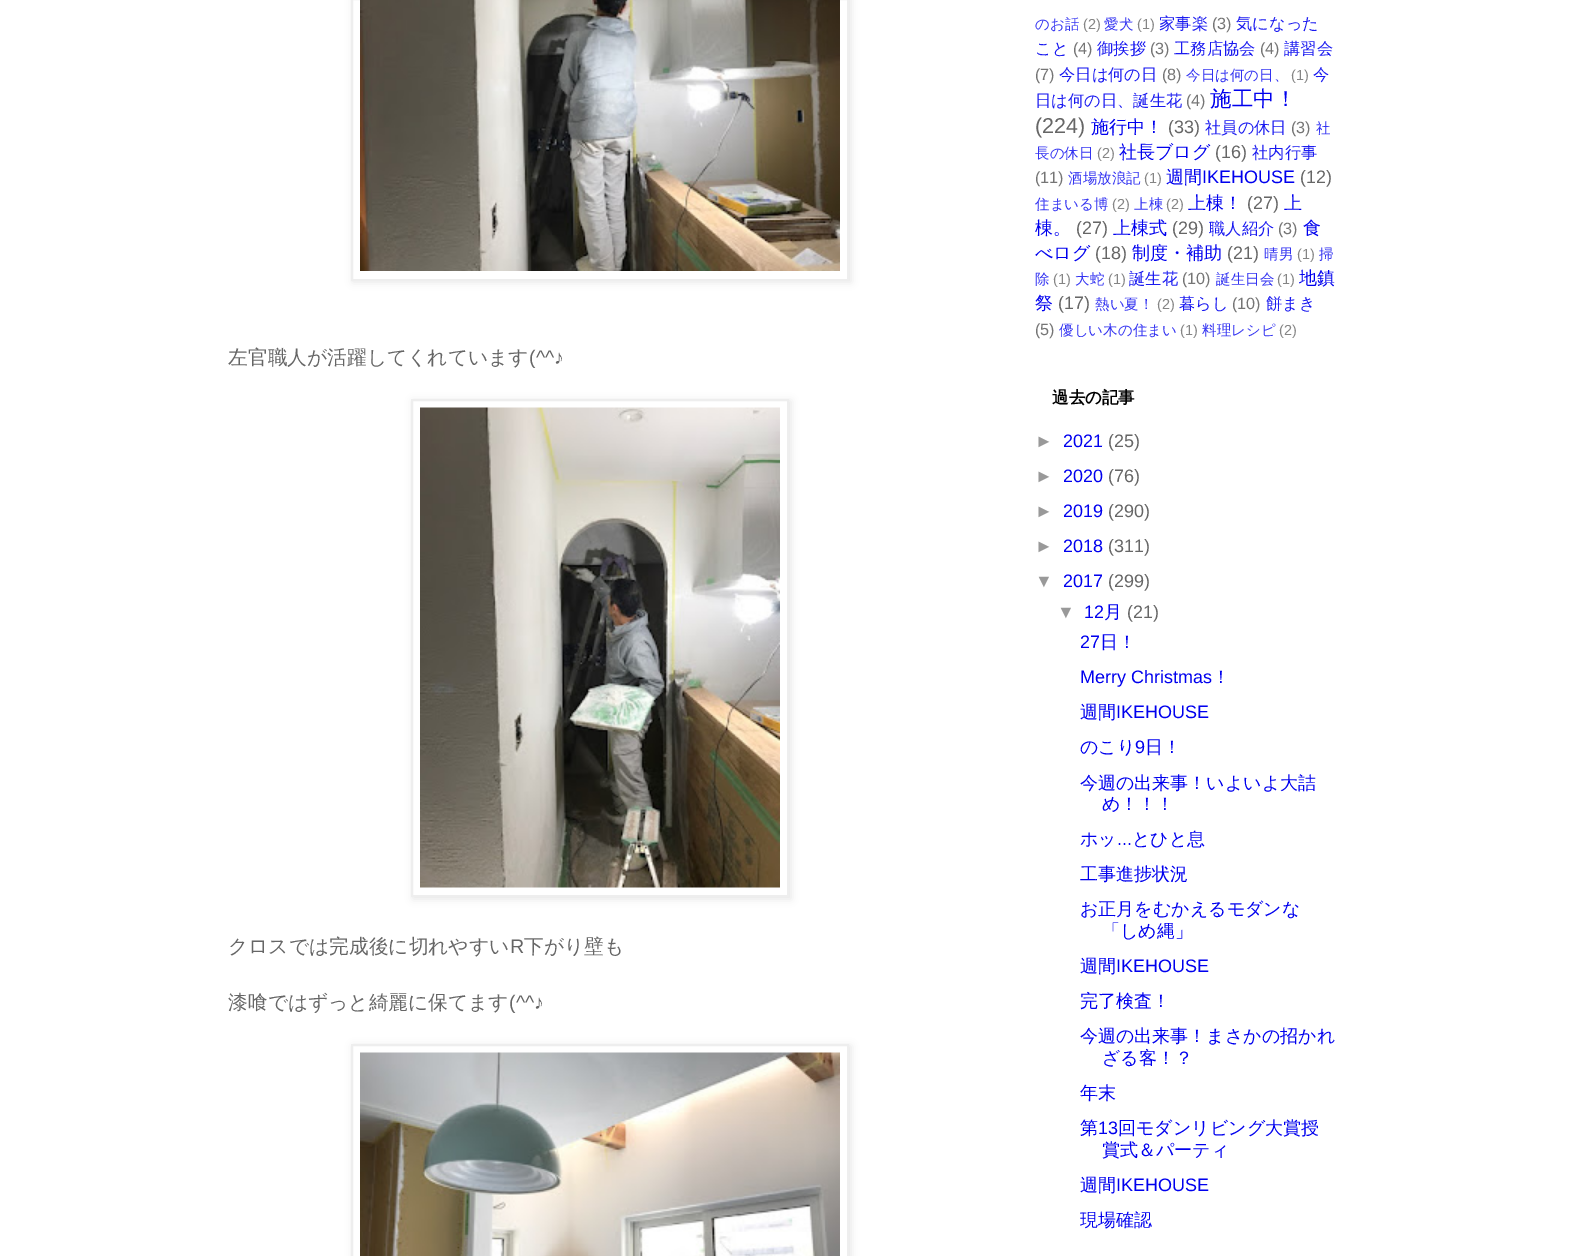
%!PS
<< /PageSize [1589 1256] /PageUsesTransparency true >> setpagedevice
/rgb { 3 { 255 div 3 1 roll } repeat setrgbcolor } def
/font { [ exch dup neg 0 0 3 -1 roll 0 0 ] selectfont } def
/text { moveto show } def
/alpha { dup .setfillconstantalpha .setstrokeconstantalpha } def
/roundrect { 5 dict begin { /r /h /w /y /x } { exch def } forall
  x r add y moveto x w add y 2 copy h add r arct x w add y h add x 1 index r arct
  x y h add x y r arct x y 2 copy exch w add exch r arct closepath end } def
/shadow { 12 dict begin { /a /b /q /h /w /y /x } { exch def } forall gsave /was 0 def
  9 -2 -9 { dup b mul 4 div /e exch def 1 sub .425 mul 2.718 exch exp 1 add a .99 .min exch div /now exch def
    1 1 now sub 1 was sub div sub alpha /was now def
    w h .min e 2 mul add 0 gt { x e sub y e sub w e 2 mul add h e 2 mul add
      q e add b .6 mul add w h .min 2 div e add .min 0 .max roundrect fill } if } for grestore end } def
/picture { 5 dict begin { /h /w /y /x /name } { exch def } forall
  gsave x y translate w h scale
  w h 8 [w 0 0 h 0 0] name (r) file false 3 colorimage grestore end } def
0 .pushpdf14devicefilter
0 1256 translate 1 -1 scale
4 setmiterlimit
255 255 255 rgb
0 0 1589 1256 rectfill
0 0 0 rgb
353 -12 498 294 0 4 0.1 shadow
255 255 255 rgb
352 -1 moveto 496 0 rlineto 0 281 rlineto -496 0 rlineto closepath gsave fill grestore
238 238 238 rgb
2 setlinewidth
stroke
(img_01.rgb) 360 0 480 271 picture
gsave
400 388 moveto 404 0 rlineto 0 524 rlineto -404 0 rlineto closepath 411 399 moveto 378 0 rlineto 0 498 rlineto -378 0 rlineto closepath eoclip newpath
0 0 0 rgb
413 401 378 498 0 4 0.1 shadow
grestore
412 400 376 496 rectstroke
(img_02.rgb) 420 407 360 481 picture
gsave
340 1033 moveto 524 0 rlineto 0 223 rlineto -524 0 rlineto closepath 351 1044 moveto 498 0 rlineto 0 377 rlineto -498 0 rlineto closepath eoclip newpath
0 0 0 rgb
353 1046 498 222 0 4 0.1 shadow
grestore
352 1045 496 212 rectstroke
(img_03.rgb) 360 1052 480 204 picture
/WenQuanYiZenHei-Medium 19.75 font
102 102 102 rgb
(左官職人が活躍してくれています) 228 364 text
/LiberationSans-Regular 19.75 font
(\(^^♪) 529 364 text
/WenQuanYiZenHei-Medium 19.75 font
(クロスでは完成後に切れやすい) 228 953 text
/LiberationSans-Regular 19.75 font
(R) 510 953 text
/WenQuanYiZenHei-Medium 19.75 font
(下がり壁も) 524 953 text
(漆喰ではずっと綺麗に保てます) 228 1009 text
/LiberationSans-Regular 19.75 font
(\(^^♪) 509 1009 text
/WenQuanYiZenHei-Medium 14.5 font
51 51 241 rgb
(のお話) 1035 29 text
/LiberationSans-Regular 14.5 font
133 133 133 rgb
(\(2\)) 1083 29 text
/WenQuanYiZenHei-Medium 14.5 font
51 51 241 rgb
(愛犬) 1104 29 text
/LiberationSans-Regular 14.5 font
133 133 133 rgb
(\(1\)) 1137 29 text
/WenQuanYiZenHei-Medium 16.25 font
26 26 240 rgb
(家事楽) 1159 29 text
/LiberationSans-Regular 16.25 font
117 117 117 rgb
(\(3\)) 1212 29 text
/WenQuanYiZenHei-Medium 16.25 font
26 26 240 rgb
(気になった) 1236 29 text
(こと) 1035 54 text
/LiberationSans-Regular 16.25 font
117 117 117 rgb
(\(4\)) 1073 54 text
/WenQuanYiZenHei-Medium 16.25 font
26 26 240 rgb
(御挨拶) 1097 54 text
/LiberationSans-Regular 16.25 font
117 117 117 rgb
(\(3\)) 1150 54 text
/WenQuanYiZenHei-Medium 16.25 font
26 26 240 rgb
(工務店協会) 1174 54 text
/LiberationSans-Regular 16.25 font
117 117 117 rgb
(\(4\)) 1260 54 text
/WenQuanYiZenHei-Medium 16.25 font
26 26 240 rgb
(講習会) 1284 54 text
/LiberationSans-Regular 16.25 font
117 117 117 rgb
(\(7\)) 1035 80 text
/WenQuanYiZenHei-Medium 16.25 font
26 26 240 rgb
(今日は何の日) 1059 80 text
/LiberationSans-Regular 16.25 font
117 117 117 rgb
(\(8\)) 1162 80 text
/WenQuanYiZenHei-Medium 14.5 font
51 51 241 rgb
(今日は何の日、) 1186 80 text
/LiberationSans-Regular 14.5 font
133 133 133 rgb
(\(1\)) 1291 80 text
/WenQuanYiZenHei-Medium 16.25 font
26 26 240 rgb
(今) 1313 80 text
(日は何の日、誕生花) 1035 106 text
/LiberationSans-Regular 16.25 font
117 117 117 rgb
(\(4\)) 1186 106 text
/WenQuanYiZenHei-Medium 21.5 font
0 0 238 rgb
(施工中！) 1210 106 text
/LiberationSans-Regular 21.5 font
102 102 102 rgb
(\(224\)) 1035 133 text
/WenQuanYiZenHei-Medium 18 font
0 0 238 rgb
(施行中！) 1091 133 text
/LiberationSans-Regular 18 font
102 102 102 rgb
(\(33\)) 1168 133 text
/WenQuanYiZenHei-Medium 16.25 font
26 26 240 rgb
(社員の休日) 1205 133 text
/LiberationSans-Regular 16.25 font
117 117 117 rgb
(\(3\)) 1291 133 text
/WenQuanYiZenHei-Medium 14.5 font
51 51 241 rgb
(社) 1316 133 text
(長の休日) 1035 158 text
/LiberationSans-Regular 14.5 font
133 133 133 rgb
(\(2\)) 1097 158 text
/WenQuanYiZenHei-Medium 18 font
0 0 238 rgb
(社長ブログ) 1119 158 text
/LiberationSans-Regular 18 font
102 102 102 rgb
(\(16\)) 1215 158 text
/WenQuanYiZenHei-Medium 16.25 font
26 26 240 rgb
(社内行事) 1252 158 text
/LiberationSans-Regular 16.25 font
117 117 117 rgb
(\(11\)) 1035 183 text
/WenQuanYiZenHei-Medium 14.5 font
51 51 241 rgb
(酒場放浪記) 1068 183 text
/LiberationSans-Regular 14.5 font
133 133 133 rgb
(\(1\)) 1144 183 text
/WenQuanYiZenHei-Medium 18 font
0 0 238 rgb
(週間) 1166 183 text
/LiberationSans-Regular 18 font
(IKEHOUSE) 1202 183 text
102 102 102 rgb
(\(12\)) 1300 183 text
/WenQuanYiZenHei-Medium 14.5 font
51 51 241 rgb
(住まいる博) 1035 209 text
/LiberationSans-Regular 14.5 font
133 133 133 rgb
(\(2\)) 1112 209 text
/WenQuanYiZenHei-Medium 14.5 font
51 51 241 rgb
(上棟) 1134 209 text
/LiberationSans-Regular 14.5 font
133 133 133 rgb
(\(2\)) 1166 209 text
/WenQuanYiZenHei-Medium 18 font
0 0 238 rgb
(上棟！) 1188 209 text
/LiberationSans-Regular 18 font
102 102 102 rgb
(\(27\)) 1247 209 text
/WenQuanYiZenHei-Medium 18 font
0 0 238 rgb
(上) 1284 209 text
(棟。) 1035 234 text
/LiberationSans-Regular 18 font
102 102 102 rgb
(\(27\)) 1076 234 text
/WenQuanYiZenHei-Medium 18 font
0 0 238 rgb
(上棟式) 1113 234 text
/LiberationSans-Regular 18 font
102 102 102 rgb
(\(29\)) 1172 234 text
/WenQuanYiZenHei-Medium 16.25 font
26 26 240 rgb
(職人紹介) 1209 234 text
/LiberationSans-Regular 16.25 font
117 117 117 rgb
(\(3\)) 1278 234 text
/WenQuanYiZenHei-Medium 18 font
0 0 238 rgb
(食) 1303 234 text
(べログ) 1035 259 text
/LiberationSans-Regular 18 font
102 102 102 rgb
(\(18\)) 1095 259 text
/WenQuanYiZenHei-Medium 18 font
0 0 238 rgb
(制度・補助) 1132 259 text
/LiberationSans-Regular 18 font
102 102 102 rgb
(\(21\)) 1227 259 text
/WenQuanYiZenHei-Medium 14.5 font
51 51 241 rgb
(晴男) 1264 259 text
/LiberationSans-Regular 14.5 font
133 133 133 rgb
(\(1\)) 1297 259 text
/WenQuanYiZenHei-Medium 14.5 font
51 51 241 rgb
(掃) 1319 259 text
(除) 1035 284 text
/LiberationSans-Regular 14.5 font
133 133 133 rgb
(\(1\)) 1053 284 text
/WenQuanYiZenHei-Medium 14.5 font
51 51 241 rgb
(大蛇) 1075 284 text
/LiberationSans-Regular 14.5 font
133 133 133 rgb
(\(1\)) 1108 284 text
/WenQuanYiZenHei-Medium 16.25 font
26 26 240 rgb
(誕生花) 1129 284 text
/LiberationSans-Regular 16.25 font
117 117 117 rgb
(\(10\)) 1182 284 text
/WenQuanYiZenHei-Medium 14.5 font
51 51 241 rgb
(誕生日会) 1216 284 text
/LiberationSans-Regular 14.5 font
133 133 133 rgb
(\(1\)) 1277 284 text
/WenQuanYiZenHei-Medium 18 font
0 0 238 rgb
(地鎮) 1299 284 text
(祭) 1035 309 text
/LiberationSans-Regular 18 font
102 102 102 rgb
(\(17\)) 1058 309 text
/WenQuanYiZenHei-Medium 14.5 font
51 51 241 rgb
(熱い夏！) 1095 309 text
/LiberationSans-Regular 14.5 font
133 133 133 rgb
(\(2\)) 1157 309 text
/WenQuanYiZenHei-Medium 16.25 font
26 26 240 rgb
(暮らし) 1179 309 text
/LiberationSans-Regular 16.25 font
117 117 117 rgb
(\(10\)) 1232 309 text
/WenQuanYiZenHei-Medium 16.25 font
26 26 240 rgb
(餅まき) 1266 309 text
/LiberationSans-Regular 16.25 font
117 117 117 rgb
(\(5\)) 1035 335 text
/WenQuanYiZenHei-Medium 14.5 font
51 51 241 rgb
(優しい木の住まい) 1059 335 text
/LiberationSans-Regular 14.5 font
133 133 133 rgb
(\(1\)) 1180 335 text
/WenQuanYiZenHei-Medium 14.5 font
51 51 241 rgb
(料理レシピ) 1202 335 text
/LiberationSans-Regular 14.5 font
133 133 133 rgb
(\(2\)) 1279 335 text
/WenQuanYiZenHei-Bold 16.5 font
0 0 0 rgb
(過去の記事) 1052 403 text
/LiberationSans-Regular 18 font
153 153 153 rgb
(►) 1035 447 text
0 0 238 rgb
(2021) 1063 447 text
102 102 102 rgb
(\(25\)) 1108 447 text
153 153 153 rgb
(►) 1035 482 text
0 0 238 rgb
(2020) 1063 482 text
102 102 102 rgb
(\(76\)) 1108 482 text
153 153 153 rgb
(►) 1035 517 text
0 0 238 rgb
(2019) 1063 517 text
102 102 102 rgb
(\(290\)) 1108 517 text
153 153 153 rgb
(►) 1035 552 text
0 0 238 rgb
(2018) 1063 552 text
102 102 102 rgb
(\(311\)) 1108 552 text
153 153 153 rgb
(▼) 1035 587 text
0 0 238 rgb
(2017) 1063 587 text
102 102 102 rgb
(\(299\)) 1108 587 text
153 153 153 rgb
(▼) 1057 618 text
0 0 238 rgb
(12) 1084 618 text
/WenQuanYiZenHei-Medium 18 font
(月) 1104 618 text
/LiberationSans-Regular 18 font
102 102 102 rgb
(\(21\)) 1127 618 text
0 0 238 rgb
(27) 1080 648 text
/WenQuanYiZenHei-Medium 18 font
(日！) 1100 648 text
/LiberationSans-Regular 18 font
(Merry Christmas) 1080 683 text
/WenQuanYiZenHei-Medium 18 font
(！) 1212 683 text
(週間) 1080 718 text
/LiberationSans-Regular 18 font
(IKEHOUSE) 1116 718 text
/WenQuanYiZenHei-Medium 18 font
(のこり) 1080 753 text
/LiberationSans-Regular 18 font
(9) 1135 753 text
/WenQuanYiZenHei-Medium 18 font
(日！) 1145 753 text
(今週の出来事！いよいよ大詰) 1080 789 text
(め！！！) 1102 810 text
(ホッ) 1080 845 text
/LiberationSans-Regular 18 font
(...) 1117 845 text
/WenQuanYiZenHei-Medium 18 font
(とひと息) 1132 845 text
(工事進捗状況) 1080 880 text
(お正月をむかえるモダンな) 1080 915 text
(「しめ縄」) 1102 937 text
(週間) 1080 972 text
/LiberationSans-Regular 18 font
(IKEHOUSE) 1116 972 text
/WenQuanYiZenHei-Medium 18 font
(完了検査！) 1080 1007 text
(今週の出来事！まさかの招かれ) 1080 1042 text
(ざる客！？) 1102 1064 text
(年末) 1080 1099 text
(第) 1080 1134 text
/LiberationSans-Regular 18 font
(13) 1098 1134 text
/WenQuanYiZenHei-Medium 18 font
(回モダンリビング大賞授) 1118 1134 text
(賞式＆パーティ) 1102 1156 text
(週間) 1080 1191 text
/LiberationSans-Regular 18 font
(IKEHOUSE) 1116 1191 text
/WenQuanYiZenHei-Medium 18 font
(現場確認) 1080 1226 text
.poppdf14devicefilter showpage
